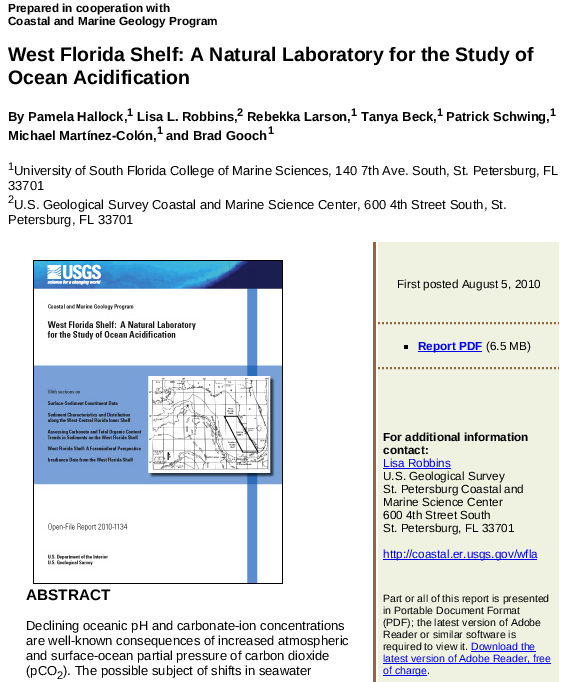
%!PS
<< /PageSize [569 682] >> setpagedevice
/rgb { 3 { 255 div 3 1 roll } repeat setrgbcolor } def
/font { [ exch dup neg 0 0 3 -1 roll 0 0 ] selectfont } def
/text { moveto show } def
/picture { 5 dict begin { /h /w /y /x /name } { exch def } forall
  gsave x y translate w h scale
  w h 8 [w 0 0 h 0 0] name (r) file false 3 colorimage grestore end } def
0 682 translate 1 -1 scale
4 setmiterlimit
255 255 255 rgb
0 0 569 682 rectfill
153 102 51 rgb
373 242 3 440 rectfill
(img_01.rgb) 33 260 250 324 picture
239 242 224 rgb
378 242 181 440 rectfill
153 102 51 rgb
2 setlinewidth
[2 2] 0 setdash
378 323 moveto 181 0 rlineto stroke
378 368 moveto 181 0 rlineto stroke
0 0 0 rgb
404 345 4 4 rectfill
0 0 238 rgb
418 351 64 1 rectfill
383 468 68 1 rectfill
383 559 154 1 rectfill
471 651 65 1 rectfill
383 663 168 1 rectfill
383 675 44 1 rectfill
/LiberationSans-Bold 11.75 font
0 0 0 rgb
(Prepared in cooperation with) 8 12 text
(Coastal and Marine Geology Program) 8 25 text
/LiberationSans-Bold 19.5 font
(West Florida Shelf: A Natural Laboratory for the Study of) 8 61 text
(Ocean Acidification) 8 84 text
/LiberationSans-Bold 13 font
(By Pamela Hallock,) 8 121 text
/LiberationSans-Bold 11 font
(1) 127 116 text
/LiberationSans-Bold 13 font
(Lisa L. Robbins,) 137 121 text
/LiberationSans-Bold 11 font
(2) 237 116 text
/LiberationSans-Bold 13 font
(Rebekka Larson,) 247 121 text
/LiberationSans-Bold 11 font
(1) 351 116 text
/LiberationSans-Bold 13 font
(Tanya Beck,) 361 121 text
/LiberationSans-Bold 11 font
(1) 437 116 text
/LiberationSans-Bold 13 font
(Patrick Schwing,) 446 121 text
/LiberationSans-Bold 11 font
(1) 550 116 text
/LiberationSans-Bold 13 font
(Michael Martínez-Colón,) 8 140 text
/LiberationSans-Bold 11 font
(1) 157 134 text
/LiberationSans-Bold 13 font
(and Brad Gooch) 166 140 text
/LiberationSans-Bold 11 font
(1) 268 134 text
/LiberationSans-Regular 11 font
(1) 8 170 text
/LiberationSans-Regular 13 font
(University of South Florida College of Marine Sciences, 140 7th Ave. South, St. Petersburg, FL) 14 175 text
(33701) 8 190 text
/LiberationSans-Regular 11 font
(2) 8 203 text
/LiberationSans-Regular 13 font
(U.S. Geological Survey Coastal and Marine Science Center, 600 4th Street South, St.) 14 209 text
(Petersburg, FL 33701) 8 224 text
/LiberationSans-Bold 15.25 font
(ABSTRACT) 26 600 text
/LiberationSans-Regular 13 font
(Declining oceanic pH and carbonate-ion concentrations) 26 630 text
(are well-known consequences of increased atmospheric) 26 645 text
(and surface-ocean partial pressure of carbon dioxide) 26 660 text
(\(pCO) 26 675 text
/LiberationSans-Regular 11 font
(2) 57 679 text
/LiberationSans-Regular 13 font
(\). The possible subject of shifts in seawater) 63 675 text
/LiberationSans-Regular 11.75 font
(First posted August 5, 2010) 397 288 text
/LiberationSans-Bold 11.75 font
0 0 238 rgb
(Report PDF) 418 350 text
/LiberationSans-Regular 11.75 font
0 0 0 rgb
(\(6.5 MB\)) 486 350 text
/LiberationSans-Bold 11.75 font
(For additional information) 383 441 text
(contact:) 383 454 text
/LiberationSans-Regular 11.75 font
0 0 238 rgb
(Lisa Robbins) 383 467 text
0 0 0 rgb
(U.S. Geological Survey) 383 480 text
(St. Petersburg Coastal and) 383 493 text
(Marine Science Center) 383 506 text
(600 4th Street South) 383 519 text
(St. Petersburg, FL 33701) 383 532 text
0 0 238 rgb
(http://coastal.er.usgs.gov/wfla) 383 558 text
/LiberationSans-Regular 10.5 font
0 0 0 rgb
(Part or all of this report is presented) 383 602 text
(in Portable Document Format) 383 614 text
(\(PDF\); the latest version of Adobe) 383 626 text
(Reader or similar software is) 383 638 text
(required to view it.) 383 650 text
0 0 238 rgb
(Download the) 471 650 text
(latest version of Adobe Reader, free) 383 662 text
(of charge) 383 674 text
0 0 0 rgb
(.) 427 674 text
showpage
